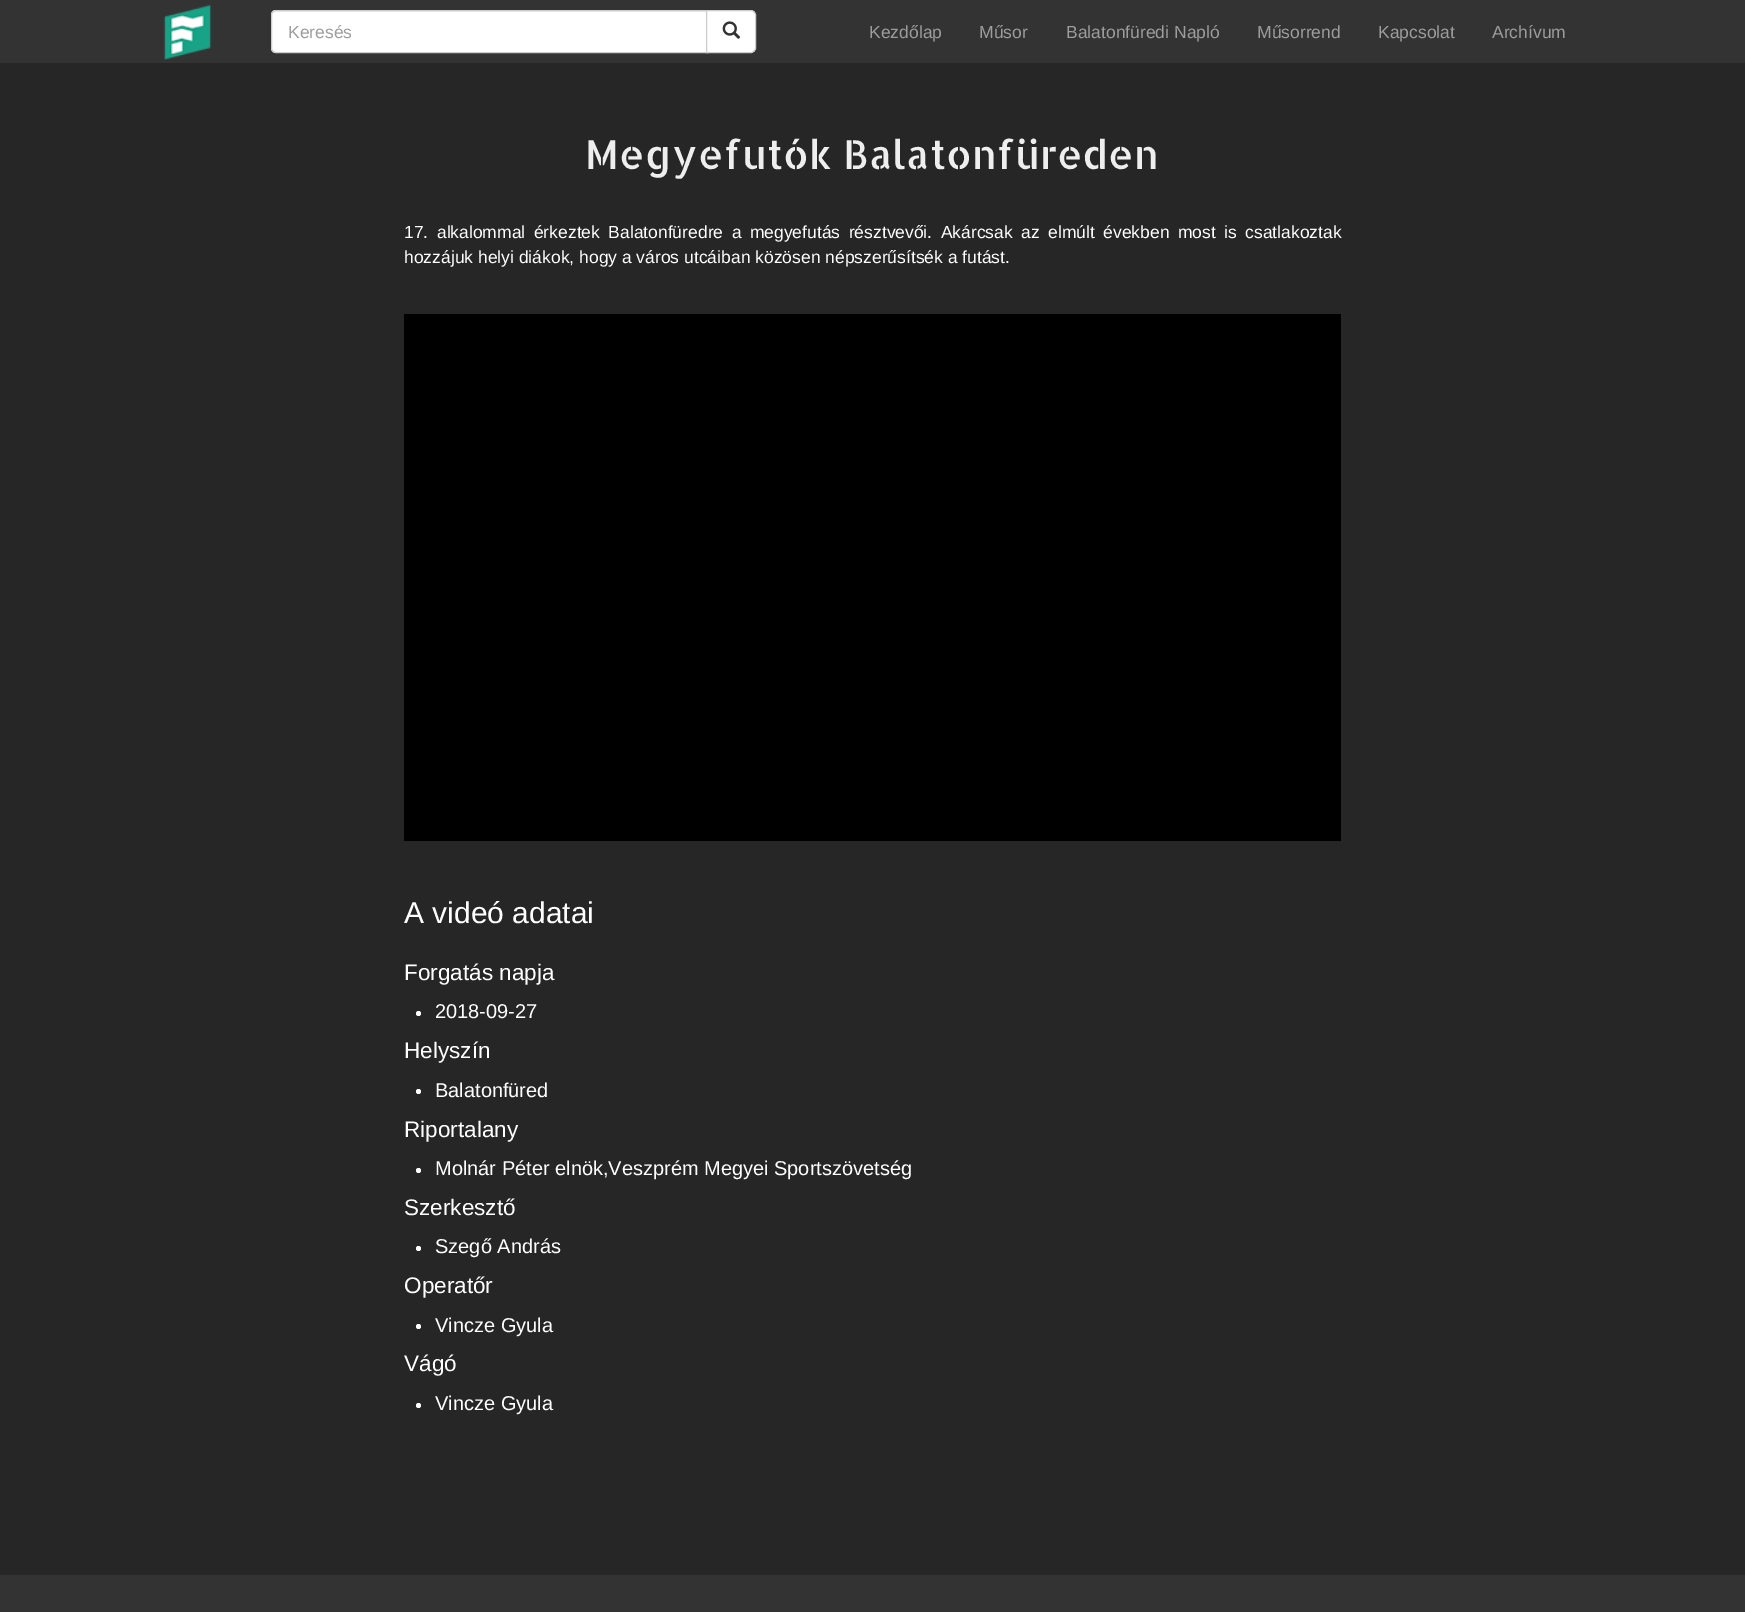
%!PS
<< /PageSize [1745 1612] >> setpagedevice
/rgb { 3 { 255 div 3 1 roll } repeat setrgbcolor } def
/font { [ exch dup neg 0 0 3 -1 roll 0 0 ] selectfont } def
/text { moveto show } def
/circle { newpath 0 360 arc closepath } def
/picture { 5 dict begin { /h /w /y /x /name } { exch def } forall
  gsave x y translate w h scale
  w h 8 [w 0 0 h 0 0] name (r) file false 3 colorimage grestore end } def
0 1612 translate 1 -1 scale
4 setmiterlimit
38 38 38 rgb
0 0 1745 1612 rectfill
51 51 51 rgb
0 0 1745 63 rectfill
(img_01.rgb) 163 5 49 55 picture
255 255 255 rgb
276 10 moveto 432 0 rlineto 0 43 rlineto -432 0 rlineto -3 0 -5 -2 -5 -5 rcurveto 0 -33 rlineto 0 -3 2 -5 5 -5 rcurveto closepath fill
236 236 236 rgb
276 12 moveto 430 0 rlineto 0 -1 rlineto -429 0 rlineto -1 0 -3 1 -3 2 rcurveto closepath fill
204 204 204 rgb
276 10.5 moveto 431.5 0 rlineto 0 42 rlineto -431.5 0 rlineto -2.5 0 -4.5 -2 -4.5 -4.5 rcurveto 0 -33 rlineto 0 -2.5 2 -4.5 4.5 -4.5 rcurveto closepath stroke
255 255 255 rgb
706.5 10.5 moveto 44.5 0 rlineto 2.5 0 4.5 2 4.5 4.5 rcurveto 0 33 rlineto 0 2.5 -2 4.5 -4.5 4.5 rcurveto -44.5 0 rlineto closepath gsave fill grestore
204 204 204 rgb
stroke
(img_02.rgb) 722 21 19 18 picture
0 0 0 rgb
404 314 937 527 rectfill
255 255 255 rgb
418.5 1013.5 2.5 circle fill
418.5 1091.5 2.5 circle fill
418.5 1170.5 2.5 circle fill
418.5 1248.5 2.5 circle fill
418.5 1326.5 2.5 circle fill
418.5 1405.5 2.5 circle fill
51 51 51 rgb
0 1575 1745 37 rectfill
/LiberationSans-Regular 17.5 font
157 157 157 rgb
(Keresés) 288 38 text
(Kezdőlap) 869 38 text
(Műsor) 979 38 text
(Balatonfüredi Napló) 1066 38 text
(Műsorrend) 1257 38 text
(Kapcsolat) 1378 38 text
(Archívum) 1492 38 text
/AllertaStencil-Regular 40 font
238 238 238 rgb
(Megyefutók Balatonfüreden) 585 169 text
/LiberationSans-Regular 17.5 font
255 255 255 rgb
404 238 moveto 3.6 0 32 (17. alkalommal érkeztek Balatonfüredre a megyefutás résztvevői. Akárcsak az elmúlt években most is csatlakoztak) widthshow
(hozzájuk helyi diákok, hogy a város utcáiban közösen népszerűsítsék a futást.) 404 263 text
/LiberationSans-Regular 30 font
(A videó adatai) 404 923 text
/LiberationSans-Regular 22.5 font
(Forgatás napja) 404 980 text
/LiberationSans-Regular 20 font
(2018-09-27) 435 1018 text
/LiberationSans-Regular 22.5 font
(Helyszín) 404 1058 text
/LiberationSans-Regular 20 font
(Balatonfüred) 435 1097 text
/LiberationSans-Regular 22.5 font
(Riportalany) 404 1137 text
/LiberationSans-Regular 20 font
(Molnár Péter elnök,Veszprém Megyei Sportszövetség) 435 1175 text
/LiberationSans-Regular 22.5 font
(Szerkesztő) 404 1215 text
/LiberationSans-Regular 20 font
(Szegő András) 435 1253 text
/LiberationSans-Regular 22.5 font
(Operatőr) 404 1293 text
/LiberationSans-Regular 20 font
(Vincze Gyula) 435 1332 text
/LiberationSans-Regular 22.5 font
(Vágó) 404 1371 text
/LiberationSans-Regular 20 font
(Vincze Gyula) 435 1410 text
showpage
